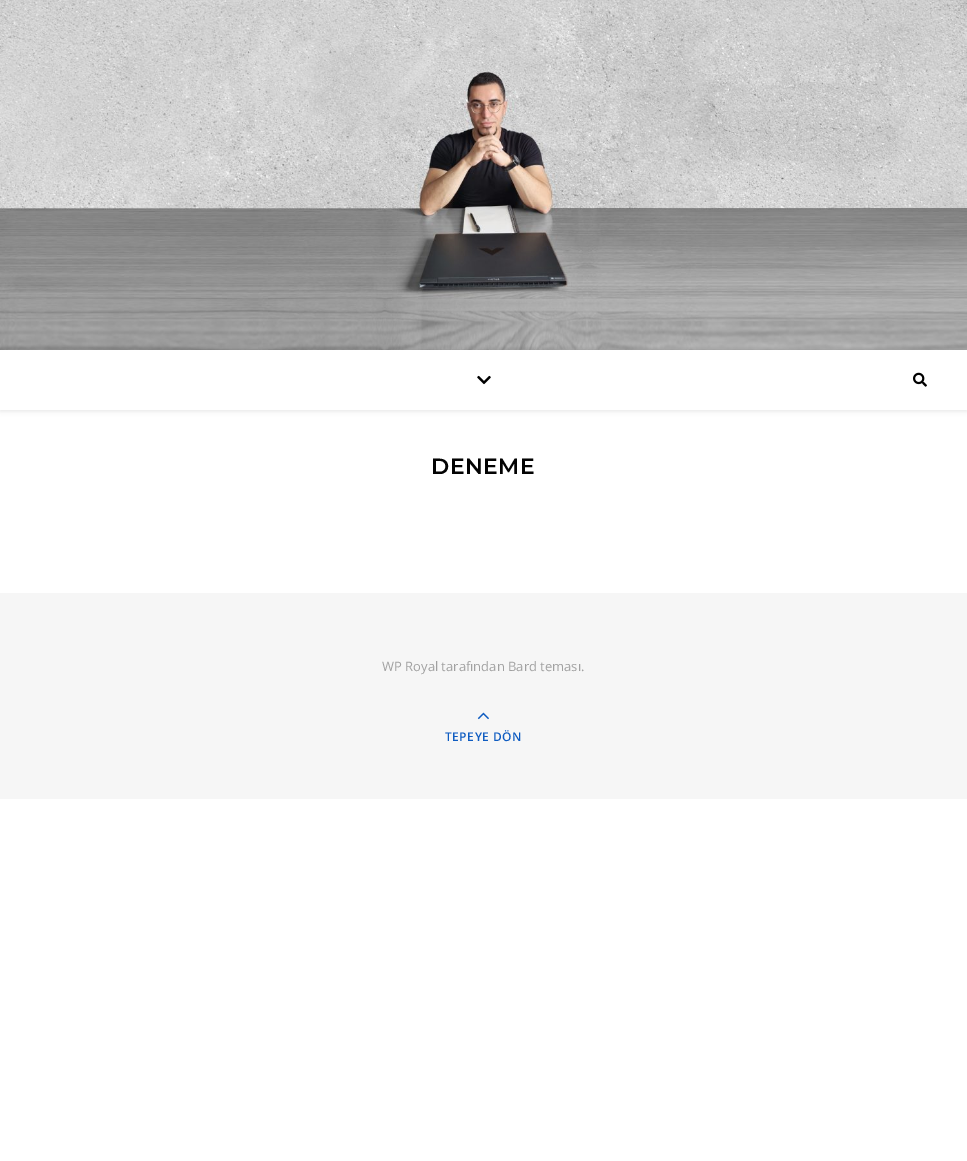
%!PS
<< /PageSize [967 1161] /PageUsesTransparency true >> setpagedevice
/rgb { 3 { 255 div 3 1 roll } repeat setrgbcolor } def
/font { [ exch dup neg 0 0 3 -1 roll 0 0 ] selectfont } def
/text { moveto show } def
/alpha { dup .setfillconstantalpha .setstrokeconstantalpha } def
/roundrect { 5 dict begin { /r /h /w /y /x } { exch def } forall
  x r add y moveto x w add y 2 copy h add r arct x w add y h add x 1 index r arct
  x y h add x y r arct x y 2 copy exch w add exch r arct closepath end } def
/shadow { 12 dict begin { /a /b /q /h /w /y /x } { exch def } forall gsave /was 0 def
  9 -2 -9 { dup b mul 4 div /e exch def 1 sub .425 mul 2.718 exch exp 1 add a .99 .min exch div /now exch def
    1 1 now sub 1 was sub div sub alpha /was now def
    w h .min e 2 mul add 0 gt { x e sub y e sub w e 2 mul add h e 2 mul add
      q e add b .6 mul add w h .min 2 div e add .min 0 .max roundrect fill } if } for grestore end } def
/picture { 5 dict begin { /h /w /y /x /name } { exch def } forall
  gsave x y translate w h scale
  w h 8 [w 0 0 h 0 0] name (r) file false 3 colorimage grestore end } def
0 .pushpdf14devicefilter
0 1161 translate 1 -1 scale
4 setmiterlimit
255 255 255 rgb
0 0 967 1161 rectfill
(img_01.rgb) 0 0 967 350 picture
gsave
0 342 moveto 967 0 rlineto 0 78 rlineto -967 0 rlineto closepath 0 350 moveto 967 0 rlineto 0 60 rlineto -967 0 rlineto closepath eoclip newpath
0 0 0 rgb
0 351 967 60 0 2.5 0.1 shadow
grestore
(img_02.rgb) 477 375 14 10 picture
(img_03.rgb) 913 372 14 15 picture
246 246 246 rgb
0 593 967 206 rectfill
(img_04.rgb) 477 712 12 8 picture
/Montserrat-SemiBold 22 font
3 3 3 rgb
431 474 moveto 0.5 0 (DENEME) ashow
/OpenSans-Regular 13 font
161 161 161 rgb
(WP Royal tarafından Bard teması.) 382 671 text
/OpenSans-SemiBold 12 font
15 92 193 rgb
445 741 moveto 0.5 0 (TEPEYE DÖN) ashow
.poppdf14devicefilter showpage
